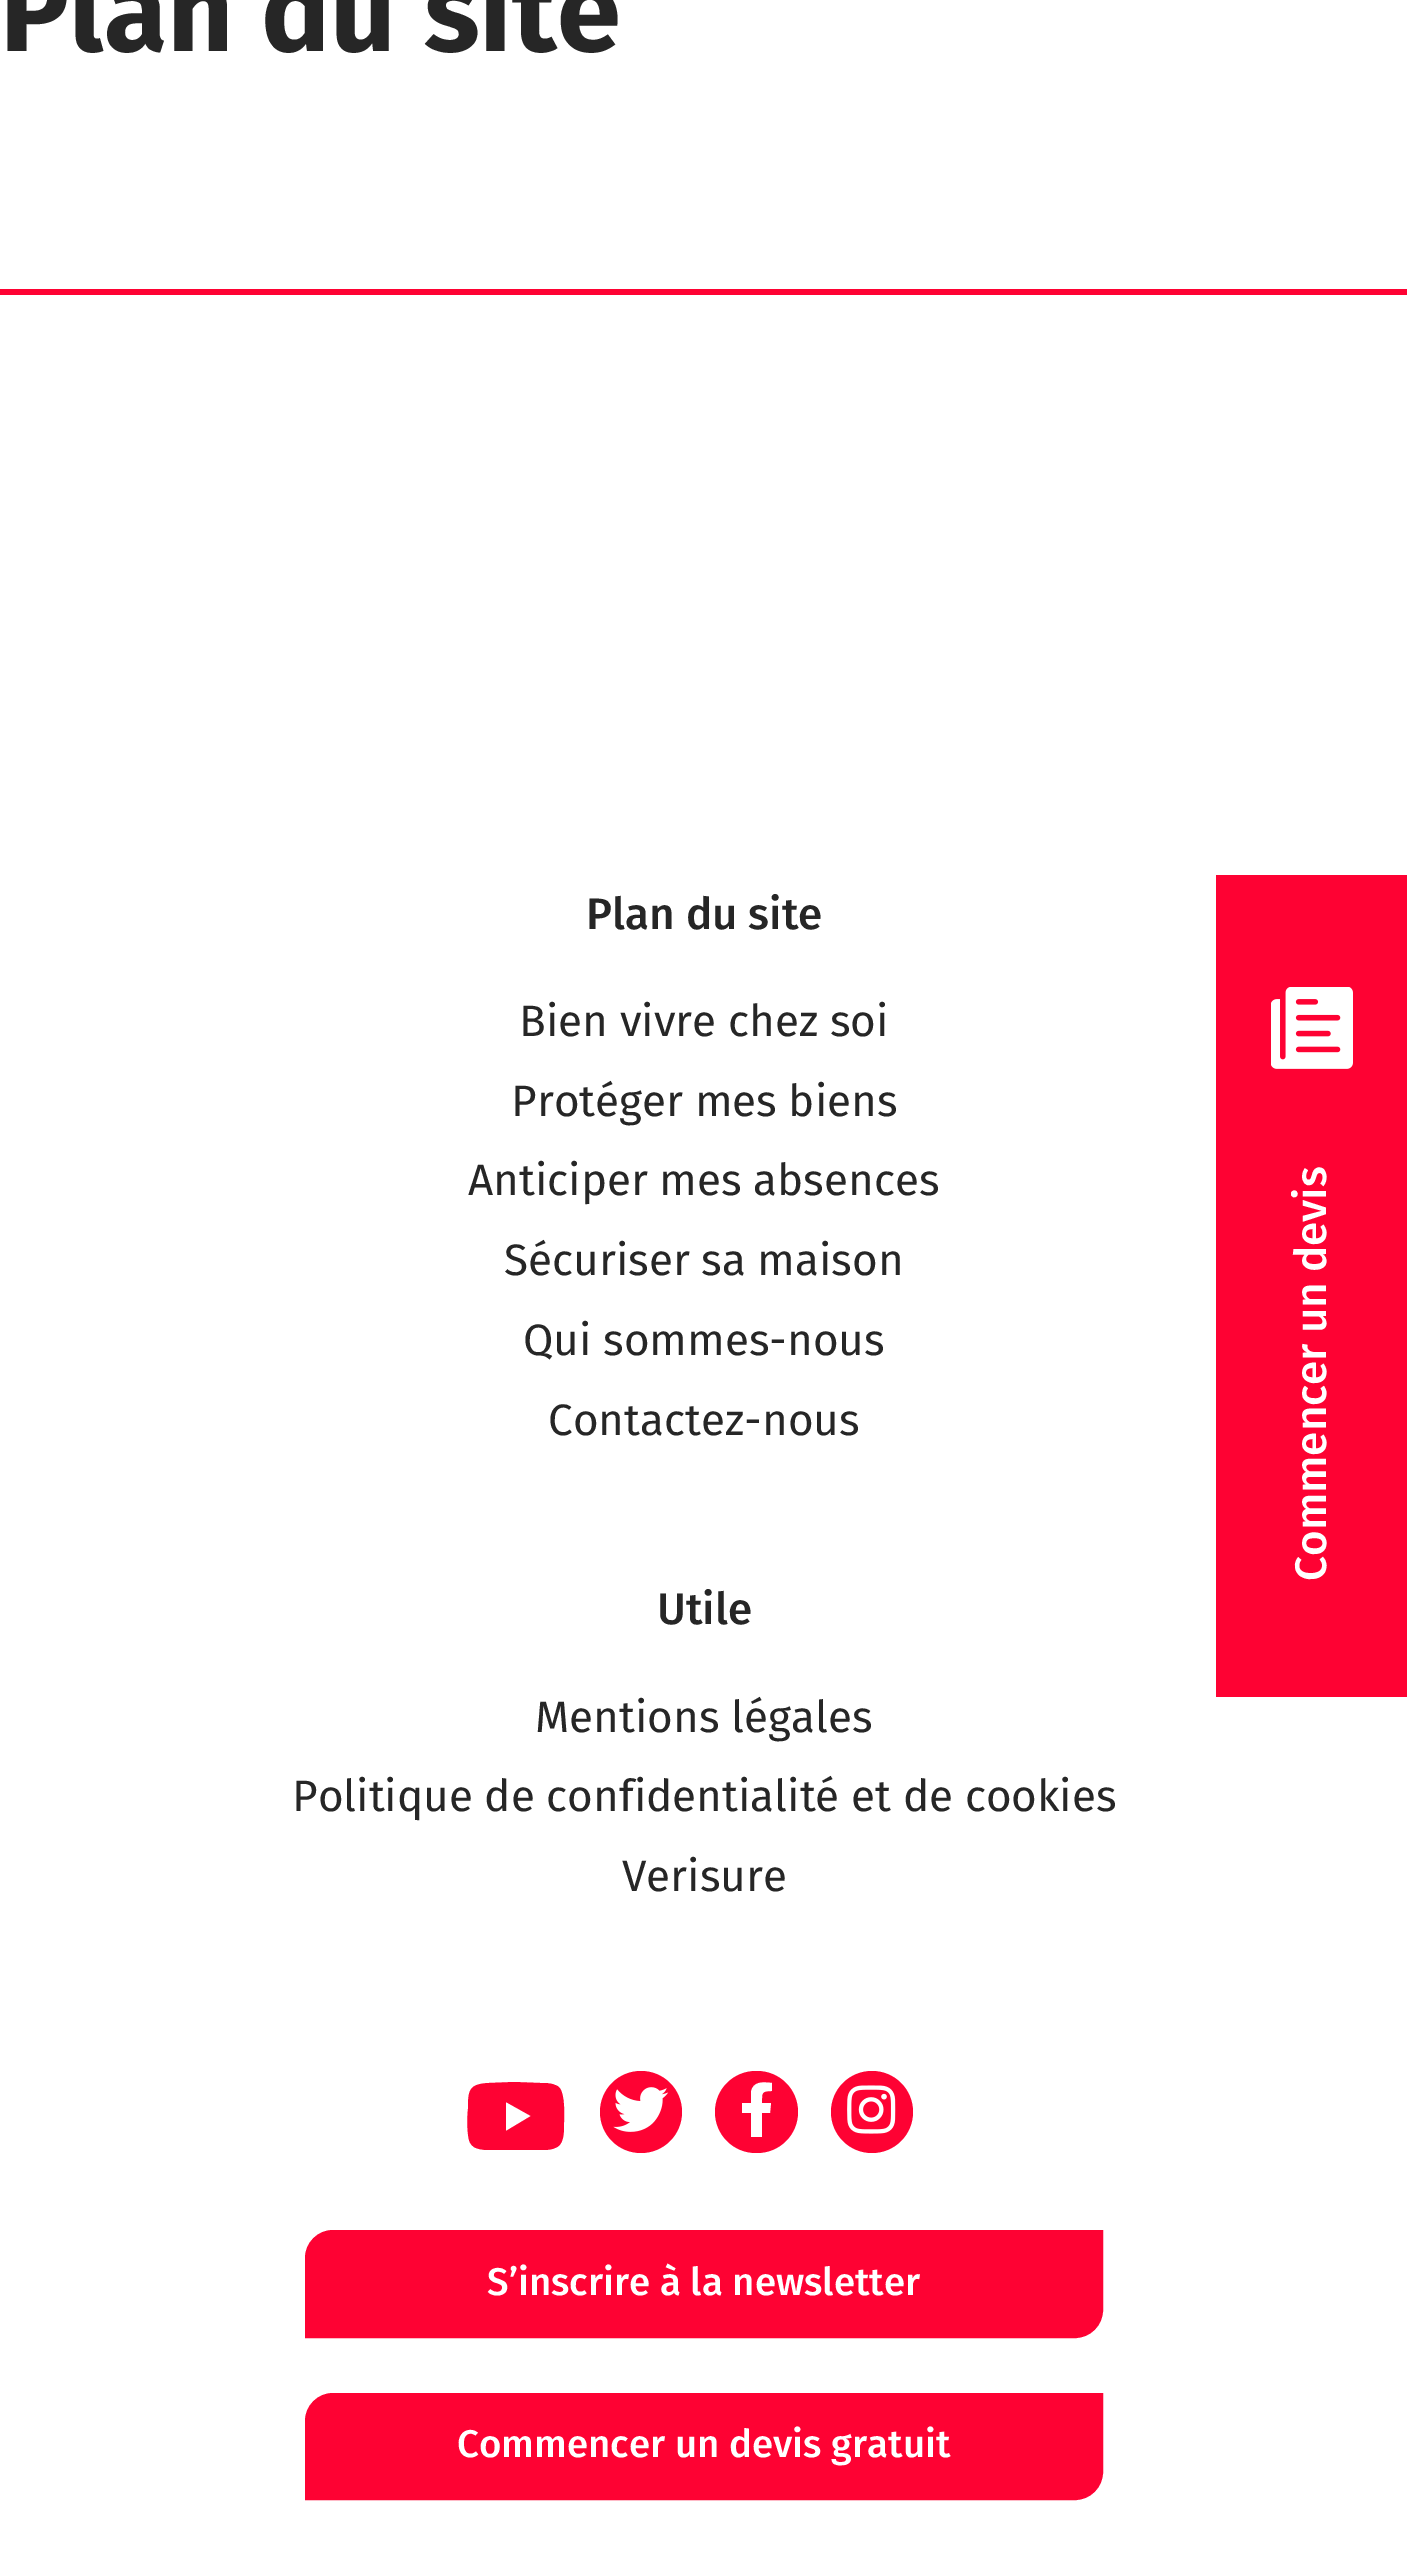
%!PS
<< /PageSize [1407 2568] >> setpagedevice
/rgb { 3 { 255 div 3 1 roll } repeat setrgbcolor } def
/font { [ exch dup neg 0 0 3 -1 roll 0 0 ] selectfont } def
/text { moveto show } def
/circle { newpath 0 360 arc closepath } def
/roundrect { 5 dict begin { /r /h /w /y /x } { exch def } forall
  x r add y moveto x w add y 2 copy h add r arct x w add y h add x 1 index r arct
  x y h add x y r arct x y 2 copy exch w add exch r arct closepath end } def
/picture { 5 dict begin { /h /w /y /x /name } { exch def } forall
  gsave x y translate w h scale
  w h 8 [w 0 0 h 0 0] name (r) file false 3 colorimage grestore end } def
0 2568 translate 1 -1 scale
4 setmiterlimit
255 255 255 rgb
0 0 1407 2568 rectfill
254 2 51 rgb
0 289 1407 6 rectfill
1216 875 191 822 rectfill
(img_01.rgb) 1271 987 82 82 picture
562 2093 moveto 3 10 2 21 2 31 rcurveto 0 6 0 14 -3 19 rcurveto -1 2 -3 4 -6 5 rcurveto -4 2 -10 2 -14 2 rcurveto -24 0 rlineto -26 0 rlineto -5 0 -10 0 -15 -2 rcurveto -3 -1 -6 -4 -7 -8 rcurveto -2 -8 -2 -22 -1 -31 rcurveto 0 -19 1 -25 21 -26 rcurveto 25 -1 rlineto 26 1 rlineto 5 0 11 0 15 2 rcurveto 4 1 6 4 7 8 rcurveto closepath 506 2131 moveto 25 -15 rlineto -25 -14 rlineto closepath fill
641 2112 41 circle fill
(img_02.rgb) 613 2087 56 45 picture
715 2071 83 82 41 roundrect fill
255 255 255 rgb
770 2113 moveto -8 0 rlineto 0 24 rlineto -11 0 rlineto 0 -24 rlineto -9 0 rlineto 0 -10 rlineto 9 0 rlineto 0 -11 rlineto 2 -11 12 -10 21 -9 rcurveto 0 8 rlineto -11 0 -10 2 -10 12 rcurveto 9 0 rlineto closepath fill
254 2 51 rgb
872 2112 41 circle fill
(img_03.rgb) 847 2085 49 49 picture
333 2231.5 moveto 768.5 0 rlineto 0 78.5 rlineto 0 14.5 -12 26.5 -26.5 26.5 rcurveto -768.5 0 rlineto 0 -78.5 rlineto 0 -14.5 12 -26.5 26.5 -26.5 rcurveto closepath gsave fill grestore
3 setlinewidth
stroke
333 2394.5 moveto 768.5 0 rlineto 0 77.5 rlineto 0 14.5 -12 26.5 -26.5 26.5 rcurveto -768.5 0 rlineto 0 -77.5 rlineto 0 -14.5 12 -26.5 26.5 -26.5 rcurveto closepath gsave fill grestore
stroke
/FiraSans-Bold 115.5 font
38 38 38 rgb
(Plan du site) 0 51 text
/FiraSans-Medium 44 font
(Plan du site) 586 929 text
/FiraSans-Regular 44 font
(Bien vivre chez soi) 519 1036 text
(Protéger mes biens) 511 1116 text
(Anticiper mes absences) 468 1195 text
(Sécuriser sa maison) 504 1275 text
(Qui sommes-nous) 523 1355 text
(Contactez-nous) 548 1435 text
/FiraSans-Medium 44 font
255 255 255 rgb
gsave 1326 1581 translate -90 rotate 0 0 moveto -1 0 32 (Commencer un devis) widthshow grestore
38 38 38 rgb
(Utile) 657 1624 text
/FiraSans-Regular 44 font
(Mentions légales) 535 1732 text
(Politique de confidentialité et de cookies) 292 1811 text
(Verisure) 622 1891 text
/FiraSans-Medium 38.5 font
255 255 255 rgb
(S’inscrire à la newsletter) 487 2295 text
(Commencer un devis gratuit) 457 2457 text
showpage
